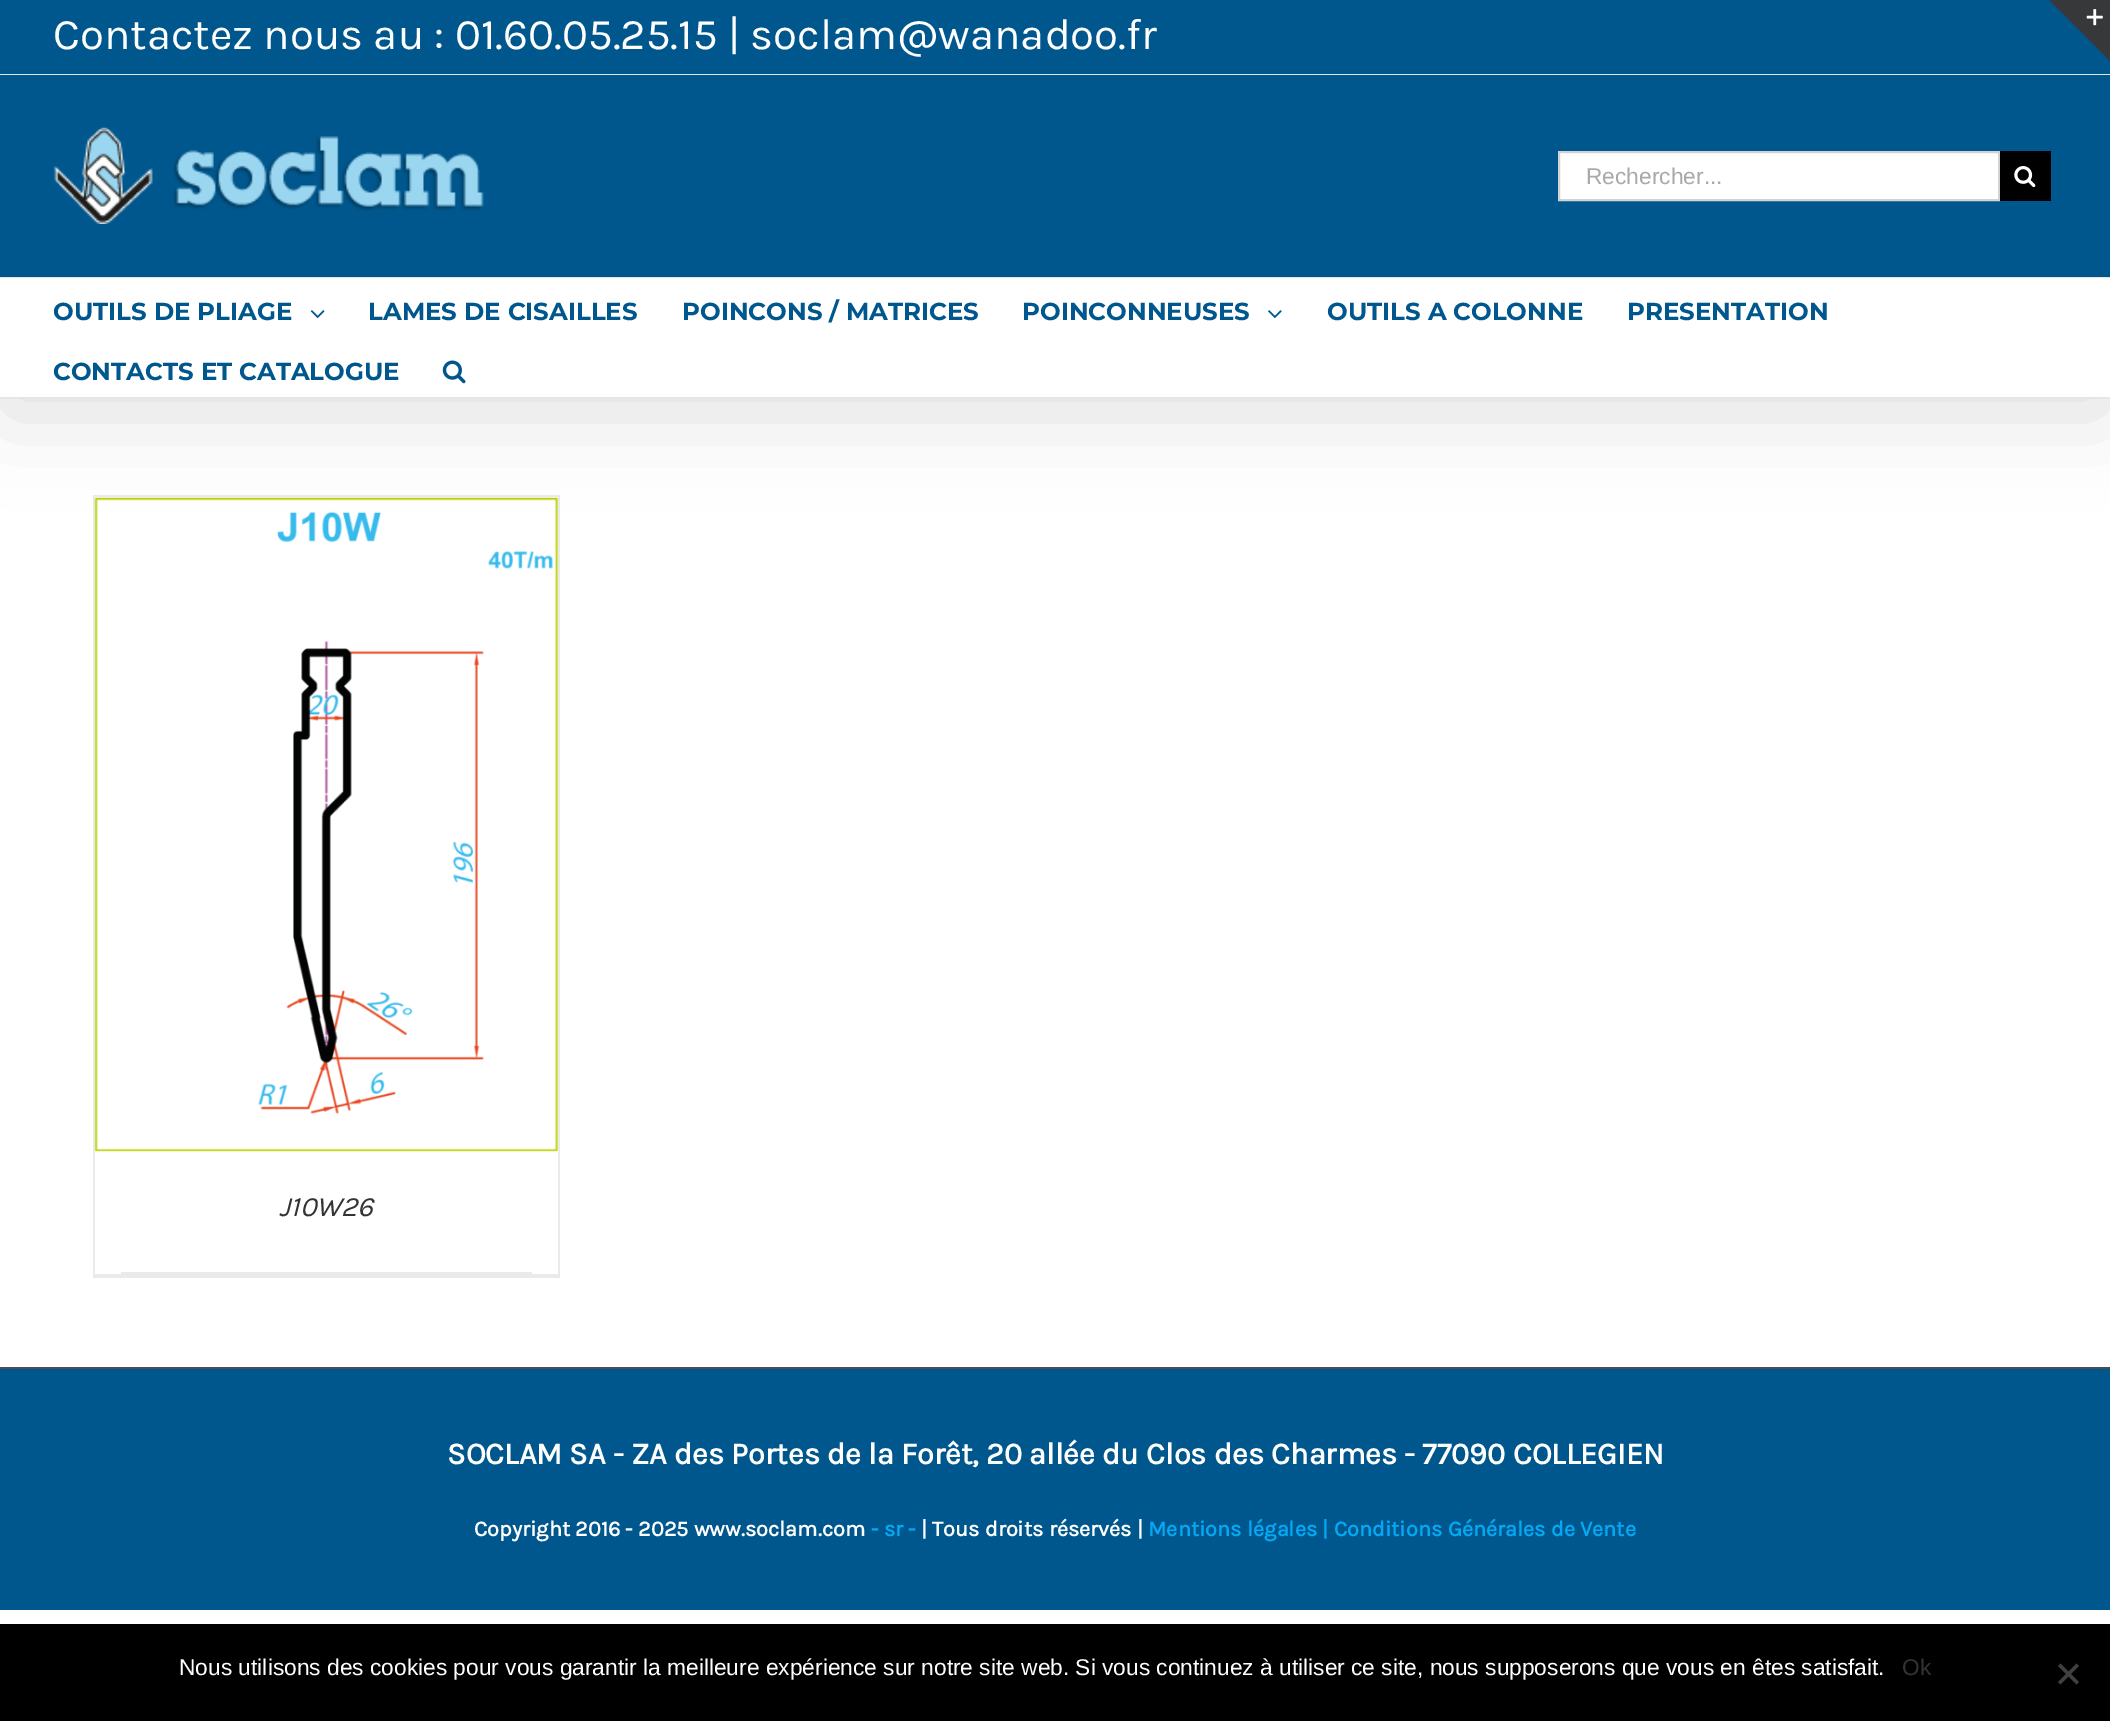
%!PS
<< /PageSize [2110 1721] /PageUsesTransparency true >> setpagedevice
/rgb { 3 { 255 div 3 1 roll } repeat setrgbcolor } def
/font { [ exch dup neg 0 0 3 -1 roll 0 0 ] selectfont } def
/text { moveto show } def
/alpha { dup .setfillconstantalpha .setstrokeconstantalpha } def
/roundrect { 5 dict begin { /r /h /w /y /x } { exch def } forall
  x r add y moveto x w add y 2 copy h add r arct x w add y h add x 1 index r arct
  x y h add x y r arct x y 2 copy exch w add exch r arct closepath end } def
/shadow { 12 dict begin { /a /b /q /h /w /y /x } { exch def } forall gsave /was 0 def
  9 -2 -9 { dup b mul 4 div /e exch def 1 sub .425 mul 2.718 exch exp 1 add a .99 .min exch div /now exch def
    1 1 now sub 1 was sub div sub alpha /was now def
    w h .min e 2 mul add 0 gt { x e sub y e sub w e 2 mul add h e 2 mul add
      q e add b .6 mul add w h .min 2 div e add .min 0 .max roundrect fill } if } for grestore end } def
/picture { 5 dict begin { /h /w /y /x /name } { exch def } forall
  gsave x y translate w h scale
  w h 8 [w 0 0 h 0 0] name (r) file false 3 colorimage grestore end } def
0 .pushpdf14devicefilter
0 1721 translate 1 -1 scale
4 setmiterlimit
255 255 255 rgb
0 0 2110 1721 rectfill
235 234 234 rgb
93 495 467 2 rectfill
558 495 2 783 rectfill
93 1274 467 4 rectfill
93 495 2 783 rectfill
(img_07.rgb) 94 497 465 655 picture
0 0 0 rgb
4 21 2103 392 0 44 0.14 shadow
0 87 141 rgb
0 0 2110 74 rectfill
229 229 229 rgb
0 74 2110 1 rectfill
0 87 141 rgb
0 75 2110 202 rectfill
229 229 229 rgb
0 277 2110 1 rectfill
(img_01.rgb) 53 127 431 97 picture
255 255 255 rgb
1559 152 moveto 440 0 rlineto 0 48 rlineto -440 0 rlineto closepath gsave fill grestore
210 210 210 rgb
2 setlinewidth
stroke
0 0 0 rgb
2000 151 51 50 rectfill
(img_02.rgb) 2014 166 22 22 picture
255 255 255 rgb
0 278 2110 119 rectfill
229 229 229 rgb
0 397 2110 2 rectfill
(img_03.rgb) 310 310 15 8 picture
(img_04.rgb) 1268 310 14 8 picture
(img_05.rgb) 442 360 24 24 picture
54 56 57 rgb
2049 0 moveto 61 0 rlineto 0 61 rlineto closepath fill
(img_06.rgb) 2086 9 17 17 picture
235 234 234 rgb
121 1272 411 2 rectfill
0 87 141 rgb
0 1369 2110 241 rectfill
75 76 77 rgb
0 1367 2110 2 rectfill
0 0 0 rgb
0 1624 2110 97 rectfill
64 64 64 rgb
2076.5 1663.5 moveto 2.5 2.5 rlineto -18.5 18.5 rlineto -2.5 -2.5 rlineto closepath fill
2058 1666 moveto 2.5 -2.5 rlineto 18.5 18.5 rlineto -2.5 2.5 rlineto closepath fill
/Karla-Regular 43.75 font
255 255 255 rgb
(Contactez nous au : 01.60.05.25.15 | soclam@wanadoo.fr) 53 49 text
/LiberationSans-Regular 22.75 font
170 169 169 rgb
(Rechercher...) 1586 184 text
/Montserrat-Bold 24.5 font
0 87 141 rgb
(OUTILS DE PLIAGE) 53 320 text
(LAMES DE CISAILLES) 368 320 text
(POINCONS / MATRICES) 682 320 text
(POINCONNEUSES) 1022 320 text
(OUTILS A COLONNE) 1327 320 text
(PRESENTATION) 1627 320 text
(CONTACTS ET CATALOGUE) 53 380 text
/Karla-Italic 28 font
51 51 51 rgb
(J10W26) 279 1216 text
/Karla-Bold 30.7 font
255 255 255 rgb
(SOCLAM SA - ZA des Portes de la Forêt, 20 allée du Clos des Charmes - 77090 COLLEGIEN) 447 1464 text
/Karla-Bold 21.75 font
(Copyright 2016 - 2025 www.soclam.com) 474 1536 text
3 169 244 rgb
(- sr -) 871 1536 text
255 255 255 rgb
(| Tous droits réservés |) 921 1536 text
3 169 244 rgb
(Mentions légales | Conditions Générales de Vente) 1148 1536 text
/LiberationSans-Regular 22.75 font
255 255 255 rgb
(Nous utilisons des cookies pour vous garantir la meilleure expérience sur notre site web. Si vous continuez à utiliser ce site, nous supposerons que vous en êtes satisfait.) 179 1675 text
51 51 51 rgb
(Ok) 1902 1675 text
.poppdf14devicefilter showpage
